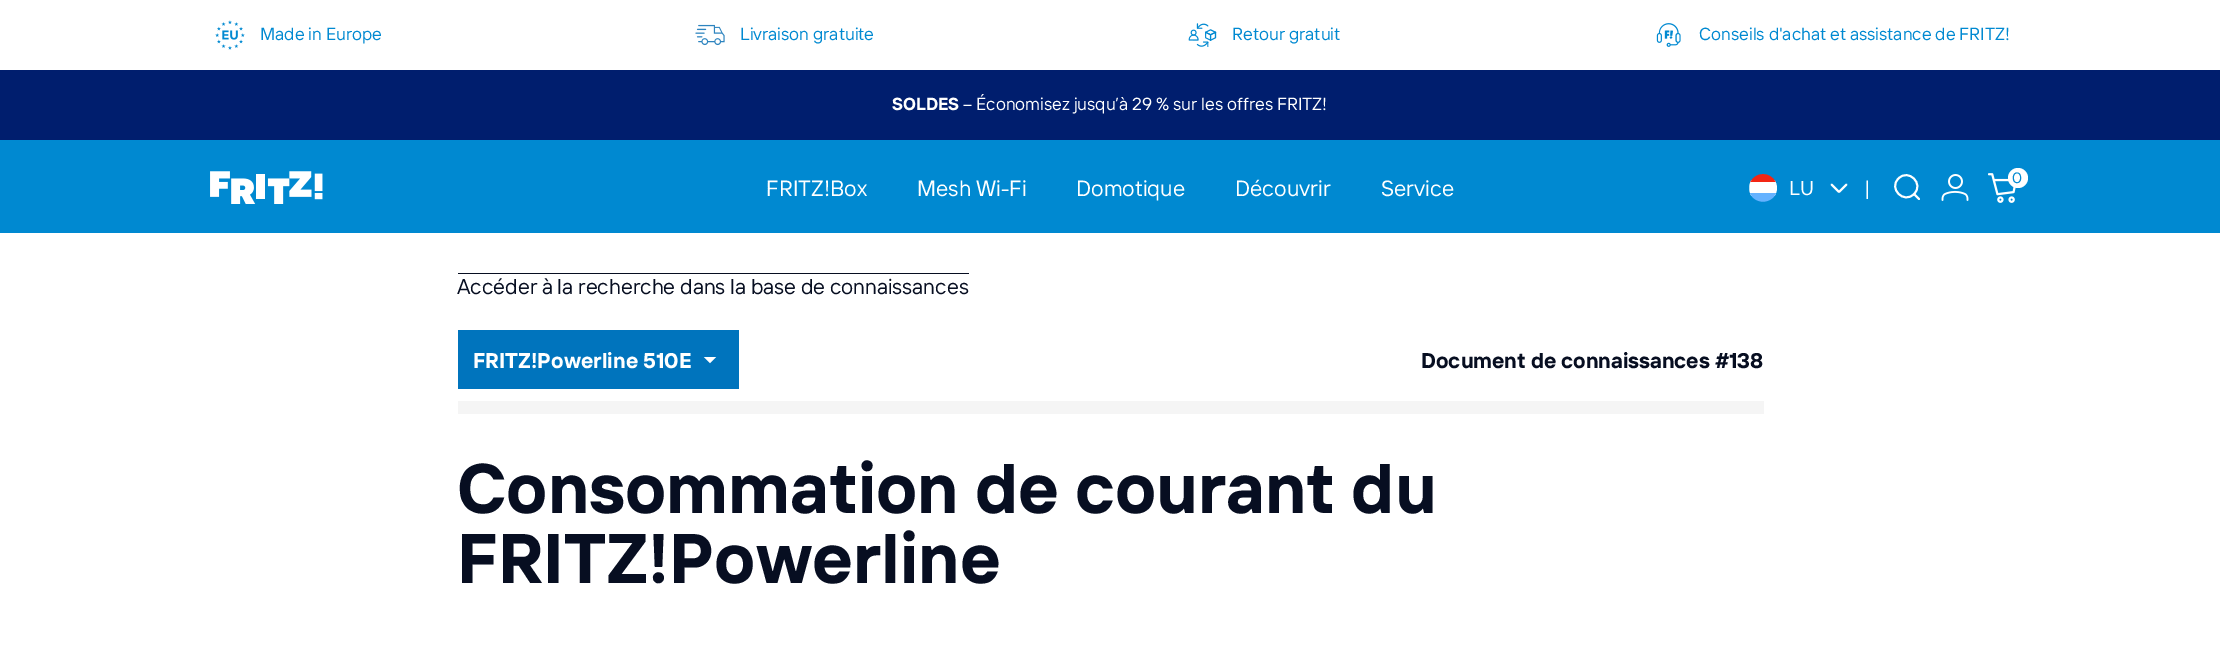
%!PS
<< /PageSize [2220 650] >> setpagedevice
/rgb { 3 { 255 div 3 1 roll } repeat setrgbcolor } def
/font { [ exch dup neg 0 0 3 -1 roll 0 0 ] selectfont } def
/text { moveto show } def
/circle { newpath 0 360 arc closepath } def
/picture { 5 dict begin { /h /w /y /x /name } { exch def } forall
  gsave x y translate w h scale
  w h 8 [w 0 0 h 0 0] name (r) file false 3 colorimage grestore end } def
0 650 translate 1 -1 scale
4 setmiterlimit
255 255 255 rgb
0 0 2220 650 rectfill
(img_01.rgb) 215 20 30 30 picture
(img_02.rgb) 695 24 30 22 picture
(img_03.rgb) 1188 23 29 24 picture
(img_04.rgb) 1656 23 25 24 picture
0 30 110 rgb
0 70 2220 70 rectfill
0 137 209 rgb
0 140 2220 93 rectfill
(img_05.rgb) 210 171 113 33 picture
255 255 255 rgb
1.9 setlinewidth
1 setlinecap
1919 199 moveto -5 -5 rlineto 1914 194 moveto 10.5 -10 -5.5 -26 -15.5 -15.5 rcurveto -10.5 10 5.5 26 15.5 15.5 rcurveto closepath stroke
(img_06.rgb) 1941 174 28 27 picture
(img_07.rgb) 1988 173 28 30 picture
2018 178 10 circle fill
1777 188 moveto 0 3 -1 5.5 -2.5 8 rcurveto -23 0 rlineto -3 -4.5 -3 -11.5 0 -16 rcurveto 23 0 rlineto 1.5 2.5 2.5 5 2.5 8 rcurveto closepath fill
101 178 255 rgb
1776 193 moveto -26 0 rlineto 4.5 11.5 21.5 11.5 26 0 rcurveto closepath fill
243 38 20 rgb
1775.5 182 moveto -25 0 rlineto 5 -10.5 20 -10.5 25 0 rcurveto closepath fill
255 255 255 rgb
1.8 setlinewidth
1 setlinejoin
1831.5 184.5 moveto 7.5 7.5 rlineto 7.5 -7.5 rlineto stroke
7 14 33 rgb
458 273 511 1 rectfill
245 245 245 rgb
458 401 1306 13 rectfill
0 116 189 rgb
458 330 281 59 rectfill
(img_08.rgb) 703 357 14 7 picture
/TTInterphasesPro-Regular 17.5 font
0 137 209 rgb
(Made in Europe) 260 40 text
(Livraison gratuite) 740 40 text
(Retour gratuit) 1232 40 text
(Conseils d'achat et assistance de FRITZ!) 1699 40 text
/TTInterphasesPro-Bold 17.5 font
255 255 255 rgb
(SOLDES) 892 110 text
/TTInterphasesPro-Regular 17.5 font
(– Économisez jusqu’à 29 % sur les offres FRITZ!) 963 110 text
/TTInterphasesPro-Regular 22 font
(FRITZ!Box) 766 196 text
(Mesh Wi-Fi) 917 196 text
(Domotique) 1076 196 text
(Découvrir) 1235 196 text
(Service) 1381 196 text
/TTInterphasesPro-Regular 15 font
0 137 209 rgb
(0) 2012 183 text
/TTInterphasesPro-Regular 20 font
255 255 255 rgb
(LU) 1789 195 text
(|) 1864 195 text
/TTInterphasesPro-Regular 21.25 font
7 14 33 rgb
(Accéder à la recherche dans la base de connaissances) 457 294 text
/TTInterphasesPro-Bold 21.25 font
255 255 255 rgb
(FRITZ!Powerline 510E) 473 368 text
7 14 33 rgb
(Document de connaissances #138) 1421 368 text
/TTInterphasesPro-Bold 70 font
(Consommation de courant du) 457 513 text
(FRITZ!Powerline) 457 583 text
showpage
